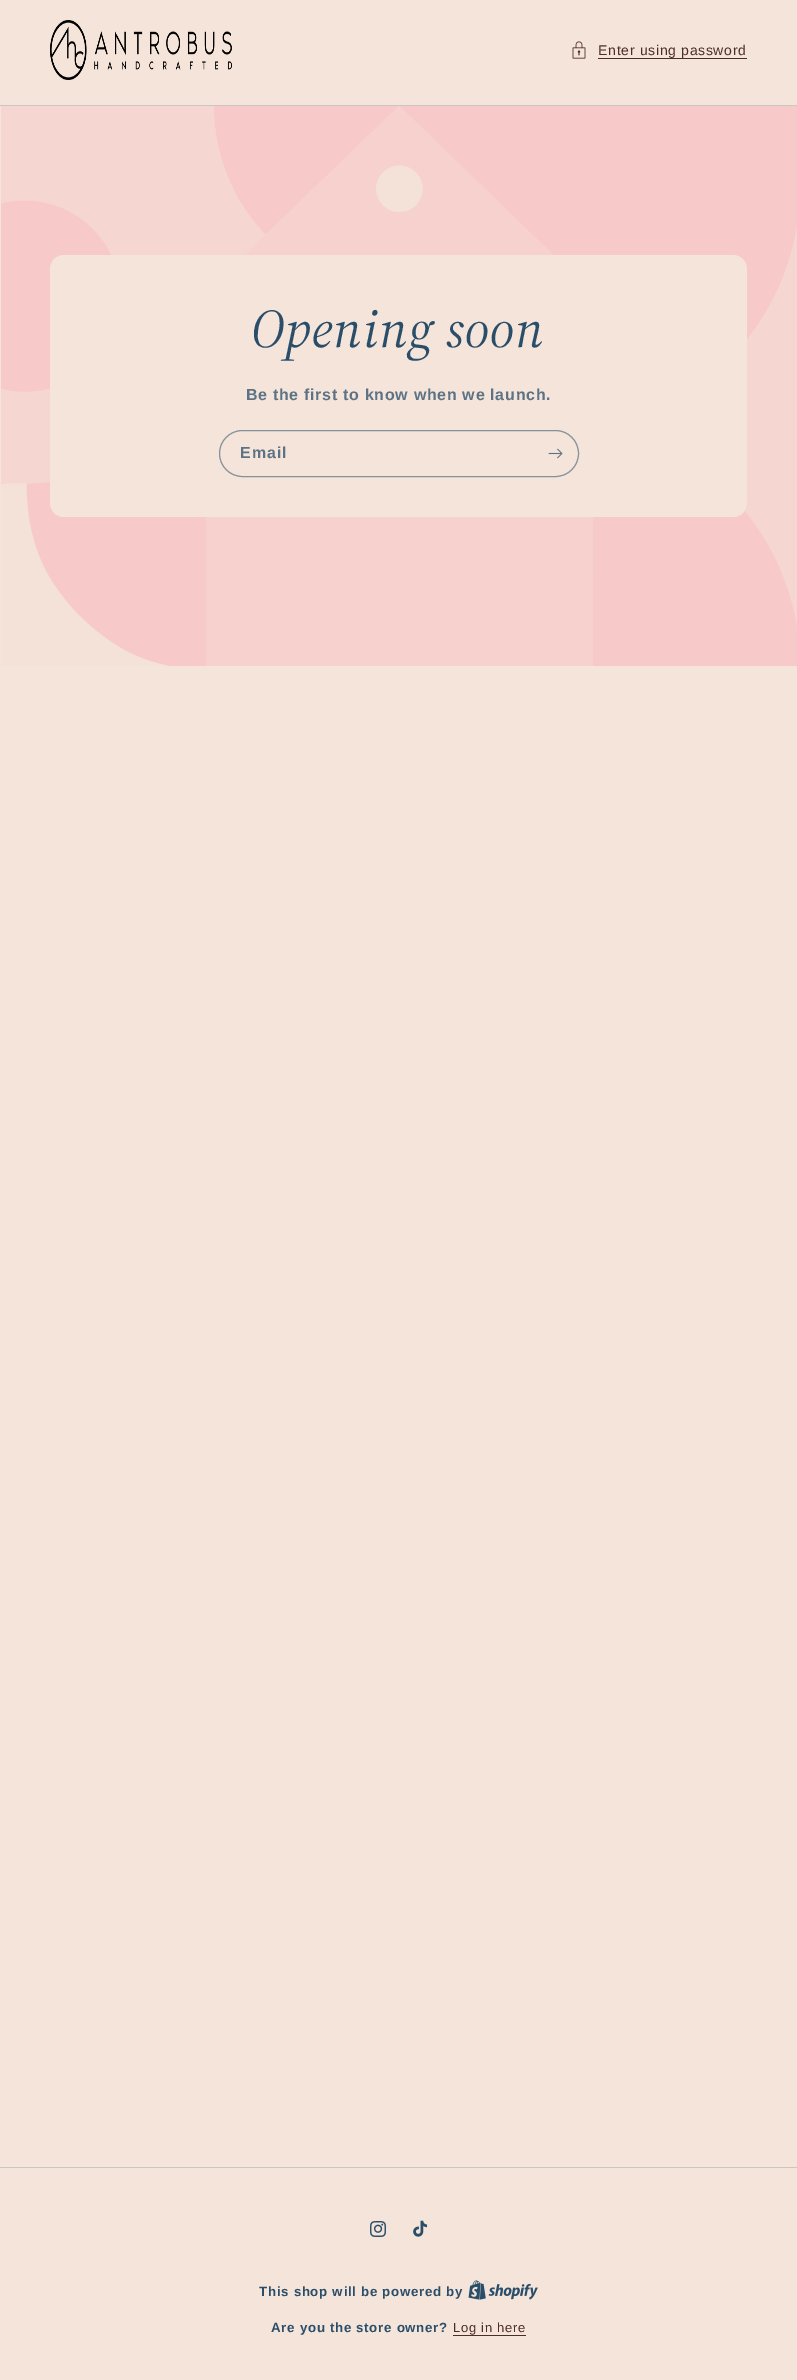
%!PS
<< /PageSize [797 2380] >> setpagedevice
/rgb { 3 { 255 div 3 1 roll } repeat setrgbcolor } def
/font { [ exch dup neg 0 0 3 -1 roll 0 0 ] selectfont } def
/roundrect { 5 dict begin { /r /h /w /y /x } { exch def } forall
  x r add y moveto x w add y 2 copy h add r arct x w add y h add x 1 index r arct
  x y h add x y r arct x y 2 copy exch w add exch r arct closepath end } def
/picture { 5 dict begin { /h /w /y /x /name } { exch def } forall
  gsave x y translate w h scale
  w h 8 [w 0 0 h 0 0] name (r) file false 3 colorimage grestore end } def
0 2380 translate 1 -1 scale
4 setmiterlimit
244 228 217 rgb
0 0 797 2380 rectfill
(img_01.rgb) 50 20 182 60 picture
(img_02.rgb) 572 41 14 18 picture
79 45 39 rgb
598 58 149 1 rectfill
204 198 195 rgb
0 105 797 1 rectfill
(img_03.rgb) 1 106 796 560 picture
244 228 217 rgb
50 255 697 262 14 roundrect fill
133 145 155 rgb
219.5 430.5 359 46 23 roundrect stroke
(img_04.rgb) 548 448 15 11 picture
204 198 195 rgb
0 2167 797 1 rectfill
(img_05.rgb) 370 2221 16 16 picture
(img_06.rgb) 413 2220 15 17 picture
(img_07.rgb) 468 2280 70 20 picture
79 45 39 rgb
453 2335 73 1 rectfill
/LiberationSans-Regular 14 font
598 55 moveto 0.7 0 (Enter using password) ashow
/SourceSerif4-Italic 54 font
42 77 105 rgb
251 347 moveto 0.75 0 (Opening soon) ashow
/LiberationSans-Bold 16 font
93 115 133 rgb
246 400 moveto 0.7 0 (Be the first to know when we launch.) ashow
240 458 moveto 1 0 (Email) ashow
/LiberationSans-Bold 13.3 font
42 77 105 rgb
259 2296 moveto 0.7 0 (This shop will be powered by) ashow
271 2332 moveto 0.7 0 (Are you the store owner?) ashow
/LiberationSans-Regular 13 font
79 45 39 rgb
453 2332 moveto 0.7 0 (Log in here) ashow
showpage
